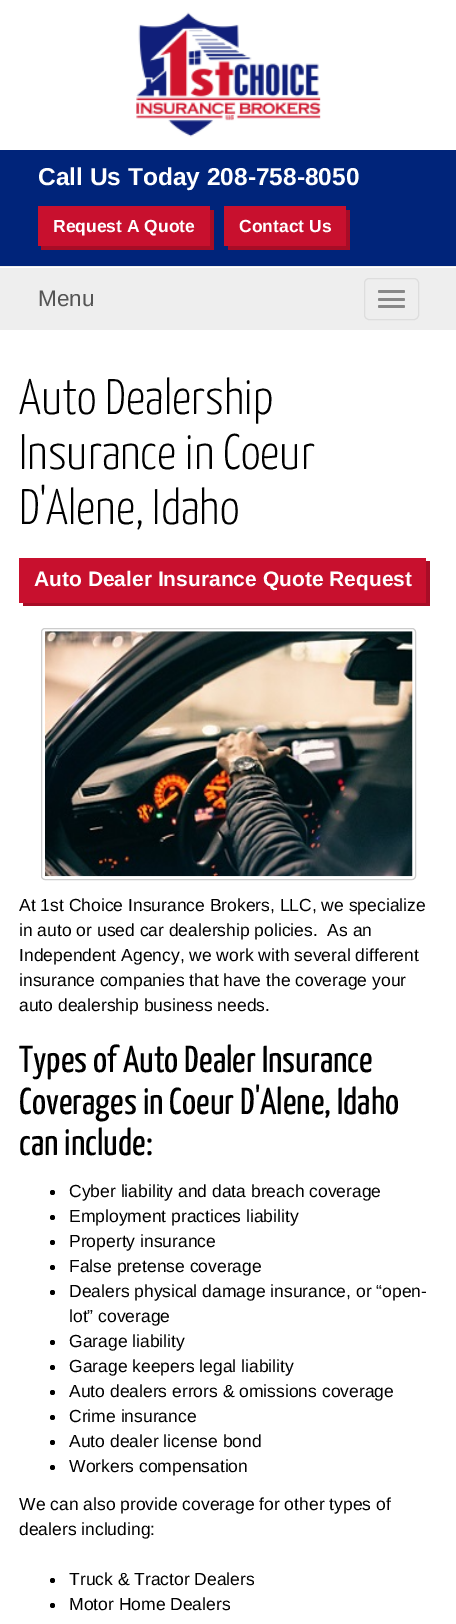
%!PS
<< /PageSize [456 1624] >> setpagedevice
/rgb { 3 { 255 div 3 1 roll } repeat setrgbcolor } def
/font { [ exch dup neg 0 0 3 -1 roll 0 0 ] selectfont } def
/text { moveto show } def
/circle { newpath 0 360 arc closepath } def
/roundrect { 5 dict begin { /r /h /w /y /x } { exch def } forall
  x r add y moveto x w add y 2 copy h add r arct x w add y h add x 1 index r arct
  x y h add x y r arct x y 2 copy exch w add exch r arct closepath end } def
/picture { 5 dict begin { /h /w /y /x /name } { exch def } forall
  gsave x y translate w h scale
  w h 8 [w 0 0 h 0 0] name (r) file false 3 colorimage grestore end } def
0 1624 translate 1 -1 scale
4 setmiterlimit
255 255 255 rgb
0 0 456 1624 rectfill
238 238 238 rgb
0 266 456 1 rectfill
(img_01.rgb) 136 12 185 125 picture
0 36 122 rgb
0 150 456 116 rectfill
167 13 38 rgb
41 246 moveto 0 4 rlineto 173 0 rlineto 0 -40 rlineto -4 0 rlineto 0 36 rlineto closepath fill
200 16 46 rgb
38 206 172 40 rectfill
167 13 38 rgb
228 246 moveto 0 4 rlineto 122 0 rlineto 0 -40 rlineto -4 0 rlineto 0 36 rlineto closepath fill
200 16 46 rgb
224 206 122 40 rectfill
238 238 238 rgb
0 268 456 62 rectfill
221 221 221 rgb
364.5 278.5 54 41 4.5 roundrect stroke
136 136 136 rgb
378 290 27 3 1.5 roundrect fill
378 298 27 3 1.5 roundrect fill
378 305 27 3 1.5 roundrect fill
167 13 38 rgb
23 602 moveto 0 4 rlineto 407 0 rlineto 0 -45 rlineto -4 0 rlineto 0 41 rlineto closepath fill
200 16 46 rgb
19 558 407 45 rectfill
204 204 204 rgb
41.5 628.5 374 251 3.5 roundrect stroke
(img_02.rgb) 45 631 368 246 picture
0 0 0 rgb
52.5 1192.5 2.5 circle fill
52.5 1217.5 2.5 circle fill
52.5 1242.5 2.5 circle fill
52.5 1267.5 2.5 circle fill
52.5 1292.5 2.5 circle fill
52.5 1342.5 2.5 circle fill
52.5 1367.5 2.5 circle fill
52.5 1392.5 2.5 circle fill
52.5 1417.5 2.5 circle fill
52.5 1442.5 2.5 circle fill
52.5 1467.5 2.5 circle fill
52.5 1580.5 2.5 circle fill
52.5 1605.5 2.5 circle fill
/LiberationSans-Bold 24.5 font
255 255 255 rgb
(Call Us Today 208-758-8050) 38 185 text
/LiberationSans-Bold 17.5 font
(Request A Quote) 53 232 text
(Contact Us) 239 232 text
/LiberationSans-Regular 22.5 font
85 85 85 rgb
(Menu) 38 306 text
/YanoneKaffeesatz-Light 50 font
0 0 0 rgb
(Auto Dealership) 19 414 text
(Insurance in Coeur) 19 469 text
(D'Alene, Idaho) 19 524 text
/LiberationSans-Bold 21 font
255 255 255 rgb
(Auto Dealer Insurance Quote Request) 34 586 text
/LiberationSans-Regular 17.5 font
0 0 0 rgb
(At 1st Choice Insurance Brokers, LLC, we specialize) 19 911 text
(in auto or used car dealership policies.  As an) 19 936 text
(Independent Agency, we work with several different) 19 961 text
(insurance companies that have the coverage your) 19 986 text
(auto dealership business needs.) 19 1011 text
/YanoneKaffeesatz-Regular 37.5 font
(Types of Auto Dealer Insurance) 19 1072 text
(Coverages in Coeur D'Alene, Idaho) 19 1114 text
(can include:) 19 1155 text
/LiberationSans-Regular 17.5 font
(Cyber liability and data breach coverage) 69 1197 text
(Employment practices liability) 69 1222 text
(Property insurance) 69 1247 text
(False pretense coverage) 69 1272 text
(Dealers physical damage insurance, or “open-) 69 1297 text
(lot” coverage) 69 1322 text
(Garage liability) 69 1347 text
(Garage keepers legal liability) 69 1372 text
(Auto dealers errors & omissions coverage) 69 1397 text
(Crime insurance) 69 1422 text
(Auto dealer license bond) 69 1447 text
(Workers compensation) 69 1472 text
(We can also provide coverage for other types of) 19 1510 text
(dealers including:) 19 1535 text
(Truck & Tractor Dealers) 69 1585 text
(Motor Home Dealers) 69 1610 text
showpage
